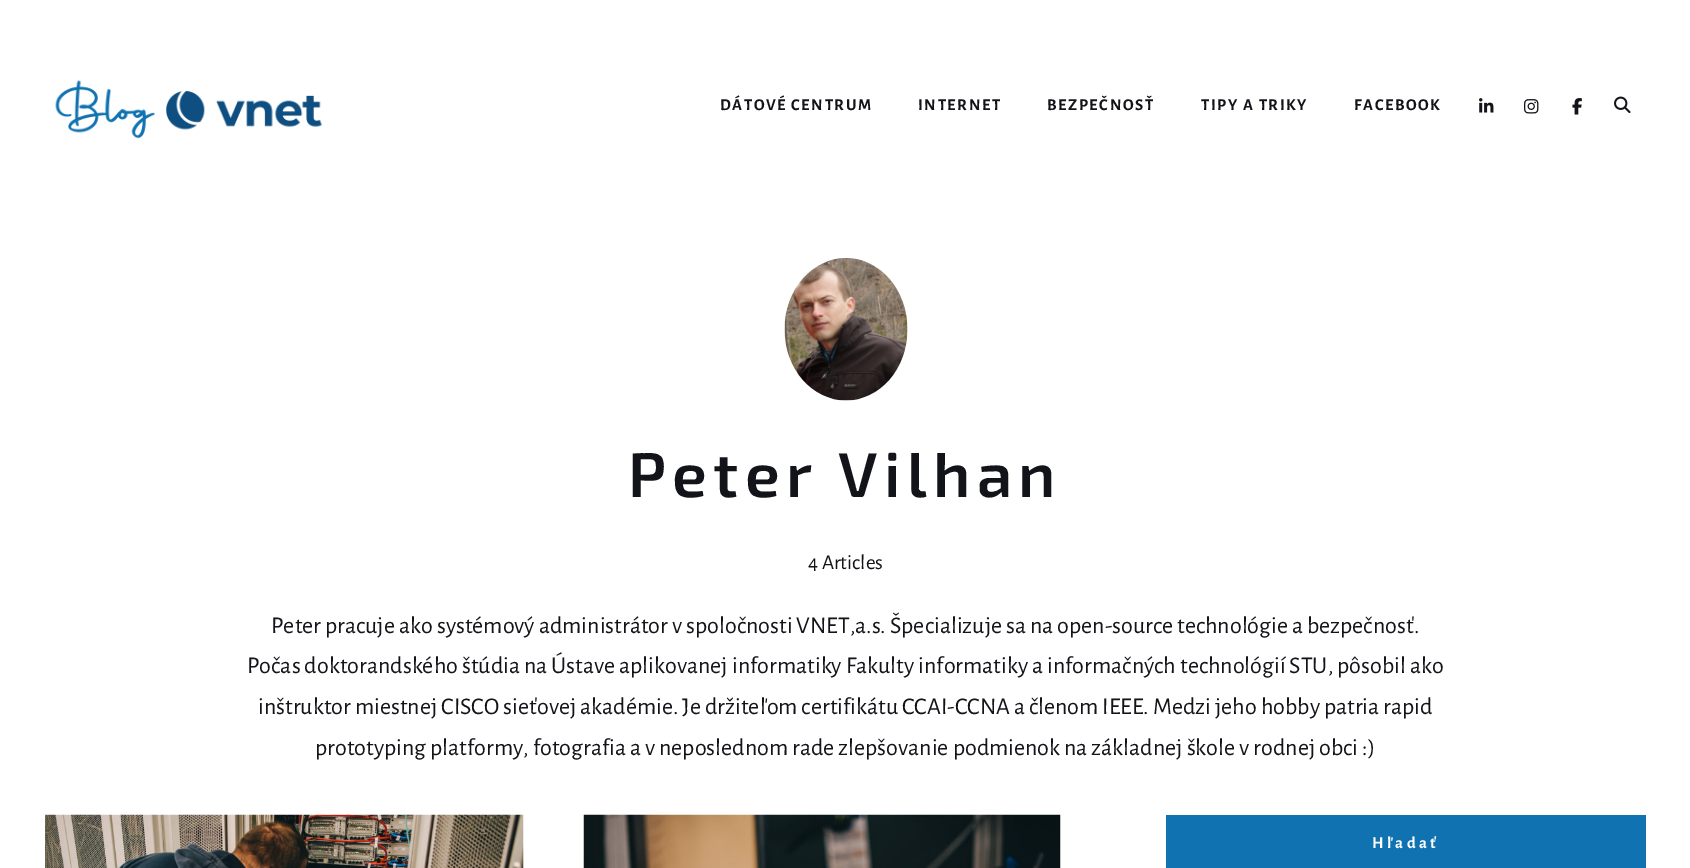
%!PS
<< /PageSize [1690 868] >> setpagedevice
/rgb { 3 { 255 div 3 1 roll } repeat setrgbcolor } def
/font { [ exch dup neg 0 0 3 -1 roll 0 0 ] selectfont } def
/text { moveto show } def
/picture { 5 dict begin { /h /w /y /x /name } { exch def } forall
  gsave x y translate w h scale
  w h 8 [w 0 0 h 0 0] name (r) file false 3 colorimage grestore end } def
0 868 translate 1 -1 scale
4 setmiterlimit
255 255 255 rgb
0 0 1690 868 rectfill
(img_01.rgb) 55 80 267 59 picture
(img_02.rgb) 1479 98 15 15 picture
(img_03.rgb) 1524 99 15 15 picture
(img_04.rgb) 1572 98 10 17 picture
(img_05.rgb) 1614 96 17 17 picture
(img_06.rgb) 784 258 124 143 picture
(img_07.rgb) 45 814 479 54 picture
(img_08.rgb) 583 814 478 54 picture
16 114 177 rgb
1166 815 480 53 rectfill
/AlegreyaSans-Bold 16.5 font
19 20 25 rgb
720 110 moveto 1.6 0 (DÁTOVÉ CENTRUM) ashow
918 110 moveto 1.6 0 (INTERNET) ashow
1047 110 moveto 1.6 0 (BEZPEČNOSŤ) ashow
1201 110 moveto 1.6 0 (TIPY A TRIKY) ashow
1354 110 moveto 1.6 0 (FACEBOOK) ashow
/Exo2-SemiBold 63 font
628 497 moveto 6.25 0 (Peter Vilhan) ashow
/AlegreyaSans-Regular 21 font
(4 Articles) 808 569 text
/AlegreyaSans-Regular 24 font
(Peter pracuje ako systémový administrátor v spoločnosti VNET,a.s. Špecializuje sa na open-source technológie a bezpečnosť.) 271 633 text
(Počas doktorandského štúdia na Ústave aplikovanej informatiky Fakulty informatiky a informačných technológií STU, pôsobil ako) 247 673 text
(inštruktor miestnej CISCO sieťovej akadémie. Je držiteľom certifikátu CCAI-CCNA a členom IEEE. Medzi jeho hobby patria rapid) 258 714 text
(prototyping platformy, fotografia a v neposlednom rade zlepšovanie podmienok na základnej škole v rodnej obci :\)) 315 755 text
/AlegreyaSans-Bold 16.5 font
255 255 255 rgb
1372 848 moveto 3.25 0 (Hľadať) ashow
showpage
